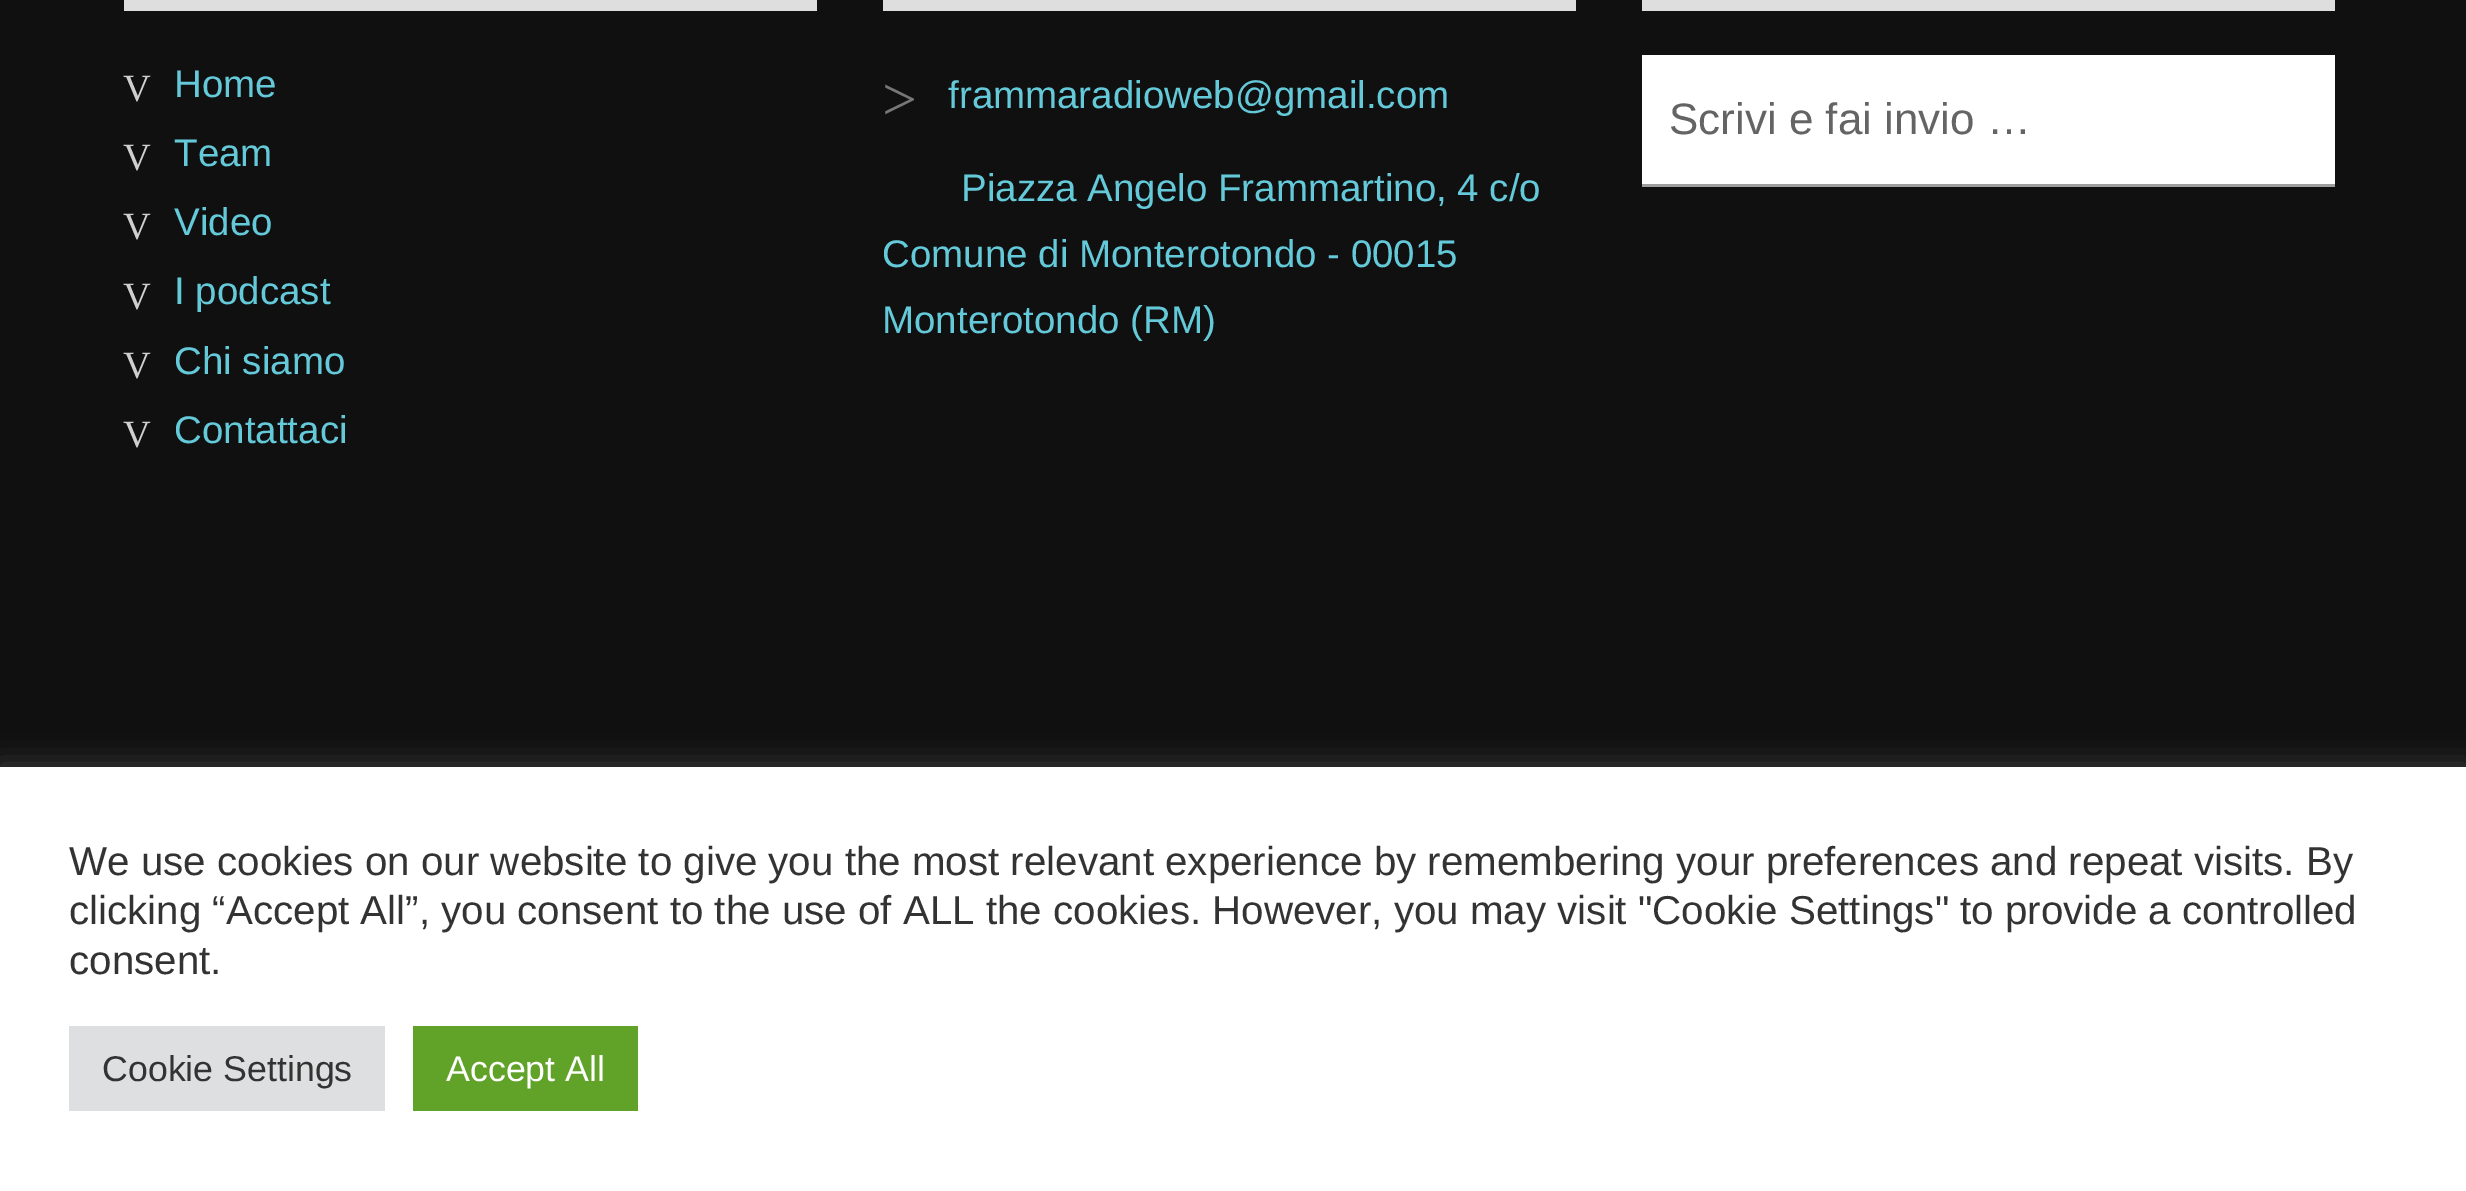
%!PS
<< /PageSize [2466 1191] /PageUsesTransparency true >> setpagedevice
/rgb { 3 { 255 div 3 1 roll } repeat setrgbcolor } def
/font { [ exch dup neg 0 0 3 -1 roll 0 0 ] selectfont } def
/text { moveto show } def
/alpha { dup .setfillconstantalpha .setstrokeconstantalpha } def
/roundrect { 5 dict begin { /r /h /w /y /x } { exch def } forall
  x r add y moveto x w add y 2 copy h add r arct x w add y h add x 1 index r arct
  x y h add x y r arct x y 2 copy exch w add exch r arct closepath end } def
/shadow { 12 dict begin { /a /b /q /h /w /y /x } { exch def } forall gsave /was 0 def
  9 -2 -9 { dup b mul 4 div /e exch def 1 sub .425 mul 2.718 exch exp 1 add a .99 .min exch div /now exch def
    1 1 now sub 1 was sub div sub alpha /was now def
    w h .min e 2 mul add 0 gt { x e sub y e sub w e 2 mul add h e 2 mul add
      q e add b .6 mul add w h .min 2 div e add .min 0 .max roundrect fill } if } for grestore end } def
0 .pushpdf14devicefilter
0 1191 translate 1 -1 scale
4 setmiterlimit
16 16 16 rgb
0 0 2466 1191 rectfill
222 222 222 rgb
124 0 693 11 rectfill
883 0 693 11 rectfill
1642 0 693 11 rectfill
255 255 255 rgb
1642 55 693 129 rectfill
158 158 158 rgb
1642 184 693 3 rectfill
172 171 171 rgb
0 765 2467 426 0 14 0.3 shadow
255 255 255 rgb
0 767 2466 424 rectfill
222 223 224 rgb
69 1026 316 85 rectfill
97 162 41 rgb
413 1026 225 85 rectfill
/LiberationSerif-Regular 38.5 font
207 207 207 rgb
(V) 123 101 text
/LiberationSans-Regular 38.5 font
100 201 217 rgb
(Home) 174 97 text
/LiberationSerif-Regular 38.5 font
207 207 207 rgb
(V) 123 170 text
/LiberationSans-Regular 38.5 font
100 201 217 rgb
(Team) 174 166 text
/LiberationSerif-Regular 38.5 font
207 207 207 rgb
(V) 123 239 text
/LiberationSans-Regular 38.5 font
100 201 217 rgb
(Video) 174 235 text
/LiberationSerif-Regular 38.5 font
207 207 207 rgb
(V) 123 309 text
/LiberationSans-Regular 38.5 font
100 201 217 rgb
(I podcast) 174 304 text
/LiberationSerif-Regular 38.5 font
207 207 207 rgb
(V) 123 378 text
/LiberationSans-Regular 38.5 font
100 201 217 rgb
(Chi siamo) 174 374 text
/LiberationSerif-Regular 38.5 font
207 207 207 rgb
(V) 123 447 text
/LiberationSans-Regular 38.5 font
100 201 217 rgb
(Contattaci) 174 443 text
/LiberationSerif-Regular 62 font
119 119 119 rgb
(>) 882 120 text
/LiberationSans-Regular 38.5 font
100 201 217 rgb
(frammaradioweb@gmail.com) 948 108 text
(Piazza Angelo Frammartino, 4 c/o) 961 201 text
(Comune di Monterotondo - 00015) 882 267 text
(Monterotondo \(RM\)) 882 333 text
/LiberationSans-Regular 44 font
100 100 100 rgb
(Scrivi e fai invio …) 1669 134 text
/LiberationSans-Regular 40.33 font
51 51 51 rgb
(We use cookies on our website to give you the most relevant experience by remembering your preferences and repeat visits. By) 69 875 text
(clicking “Accept All”, you consent to the use of ALL the cookies. However, you may visit "Cookie Settings" to provide a controlled) 69 924 text
(consent.) 69 974 text
/LiberationSans-Regular 35.75 font
(Cookie Settings) 102 1081 text
255 255 255 rgb
(Accept All) 446 1081 text
.poppdf14devicefilter showpage
